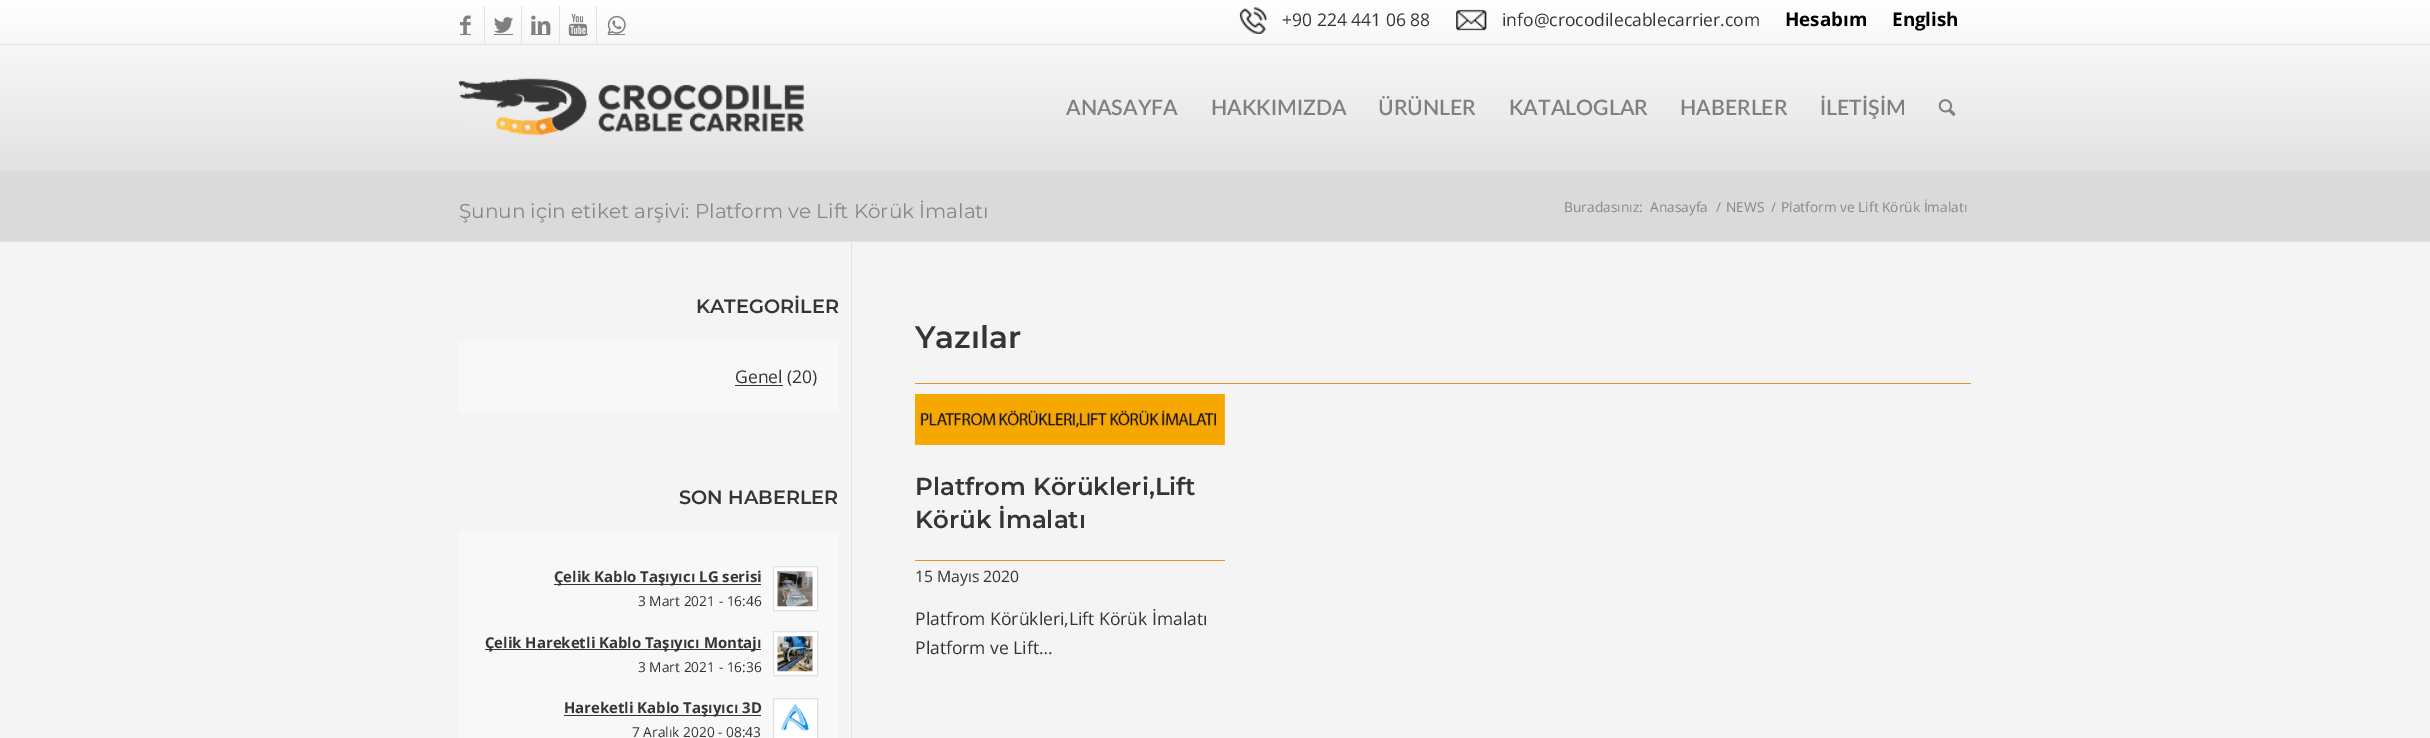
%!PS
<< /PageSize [2430 738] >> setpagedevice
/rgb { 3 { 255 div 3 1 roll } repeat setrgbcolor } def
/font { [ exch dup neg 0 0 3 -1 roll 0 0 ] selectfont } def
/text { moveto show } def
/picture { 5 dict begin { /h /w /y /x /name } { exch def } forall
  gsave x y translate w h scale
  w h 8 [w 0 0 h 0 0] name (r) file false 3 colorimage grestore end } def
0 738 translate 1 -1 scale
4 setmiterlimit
244 244 244 rgb
0 0 2430 738 rectfill
gsave 0 0 moveto 2430 0 rlineto 0 171 rlineto -2430 0 rlineto closepath clip newpath
<< /ShadingType 2 /ColorSpace /DeviceRGB /Coords [1215 171 1215 0] /Extend [true true] /Function << /FunctionType 2 /Domain [0 1] /C0 [0.886 0.886 0.886] /C1 [1 1 1] /N 1 >> >> shfill grestore
225 225 225 rgb
484 6 1 38 rectfill
(img_01.rgb) 460 15 11 19 picture
128 128 128 rgb
460 34 11 1 rectfill
225 225 225 rgb
521 6 1 38 rectfill
(img_02.rgb) 494 17 20 16 picture
128 128 128 rgb
494 34 19 1 rectfill
225 225 225 rgb
559 6 1 38 rectfill
128 128 128 rgb
531 34 19 1 rectfill
(img_03.rgb) 531 15 20 20 picture
225 225 225 rgb
596 6 1 38 rectfill
128 128 128 rgb
569 34 19 1 rectfill
(img_04.rgb) 568 14 20 23 picture
608 34 17 1 rectfill
(img_05.rgb) 607 15 19 20 picture
(img_06.rgb) 1239 7 28 27 picture
(img_07.rgb) 1456 9 31 22 picture
225 225 225 rgb
0 44 2430 1 rectfill
(img_08.rgb) 458 78 346 58 picture
(img_09.rgb) 1938 99 18 17 picture
218 218 218 rgb
0 171 2430 70 rectfill
225 225 225 rgb
0 241 2430 1 rectfill
248 248 248 rgb
459 341 380 72 rectfill
53 53 54 rgb
735 385 48 1 rectfill
248 248 248 rgb
459 531 380 207 rectfill
53 53 54 rgb
554 584 207 1 rectfill
255 255 255 rgb
773.5 566.5 moveto 44 0 rlineto 0 44 rlineto -44 0 rlineto closepath gsave fill grestore
225 225 225 rgb
stroke
(img_10.rgb) 777 571 36 36 picture
53 53 54 rgb
485 649 276 1 rectfill
255 255 255 rgb
773.5 631.5 moveto 44 0 rlineto 0 44 rlineto -44 0 rlineto closepath gsave fill grestore
225 225 225 rgb
stroke
(img_11.rgb) 777 636 36 36 picture
53 53 54 rgb
564 715 197 1 rectfill
255 255 255 rgb
773.5 698.5 moveto 44 0 rlineto 0 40 rlineto -44 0 rlineto closepath gsave fill grestore
225 225 225 rgb
stroke
(img_12.rgb) 781 703 28 28 picture
851 243 1 495 rectfill
231 148 43 rgb
915 383 1056 1 rectfill
(img_13.rgb) 915 394 310 51 picture
915 560 310 1 rectfill
/OpenSans-Regular 17.5 font
53 53 54 rgb
(+90 224 441 06 88) 1282 26 text
(info@crocodilecablecarrier.com) 1502 26 text
/OpenSans-Bold 18.75 font
0 0 0 rgb
(Hesabım) 1785 26 text
(English) 1892 26 text
/Lato-SemiBold 21.25 font
128 128 128 rgb
(ANASAYFA) 1066 115 text
(HAKKIMIZDA) 1211 115 text
(ÜRÜNLER) 1378 115 text
(KATALOGLAR) 1509 115 text
(HABERLER) 1680 115 text
(İLETİŞİM) 1820 115 text
/Montserrat-Regular 20 font
136 136 136 rgb
(Şunun için etiket arşivi: Platform ve Lift Körük İmalatı) 459 218 text
/OpenSans-Regular 13.75 font
(Buradasınız:) 1564 212 text
(Anasayfa) 1650 212 text
(/) 1716 212 text
(NEWS) 1726 212 text
(/) 1771 212 text
(Platform ve Lift Körük İmalatı) 1781 212 text
/Montserrat-SemiBold 19.25 font
53 53 54 rgb
(KATEGORİLER) 696 313 text
/OpenSans-Regular 17.5 font
(Genel \(20\)) 735 383 text
/Montserrat-SemiBold 19.25 font
(SON HABERLER) 679 504 text
/OpenSans-Bold 14.9 font
(Çelik Kablo Taşıyıcı LG serisi) 554 582 text
/OpenSans-Regular 13.75 font
(3 Mart 2021 - 16:46) 638 606 text
/OpenSans-Bold 14.9 font
(Çelik Hareketli Kablo Taşıyıcı Montajı) 485 648 text
/OpenSans-Regular 13.75 font
(3 Mart 2021 - 16:36) 638 672 text
/OpenSans-Bold 14.9 font
(Hareketli Kablo Taşıyıcı 3D) 564 713 text
/OpenSans-Regular 13.75 font
(7 Aralık 2020 - 08:43) 632 737 text
/Montserrat-SemiBold 31 font
(Yazılar) 915 348 text
/Montserrat-SemiBold 24.5 font
(Platfrom Körükleri,Lift) 915 495 text
(Körük İmalatı) 915 528 text
/OpenSans-Regular 15.75 font
(15 Mayıs 2020) 915 582 text
/OpenSans-Regular 17.5 font
(Platfrom Körükleri,Lift Körük İmalatı) 915 625 text
(Platform ve Lift…) 915 654 text
showpage
